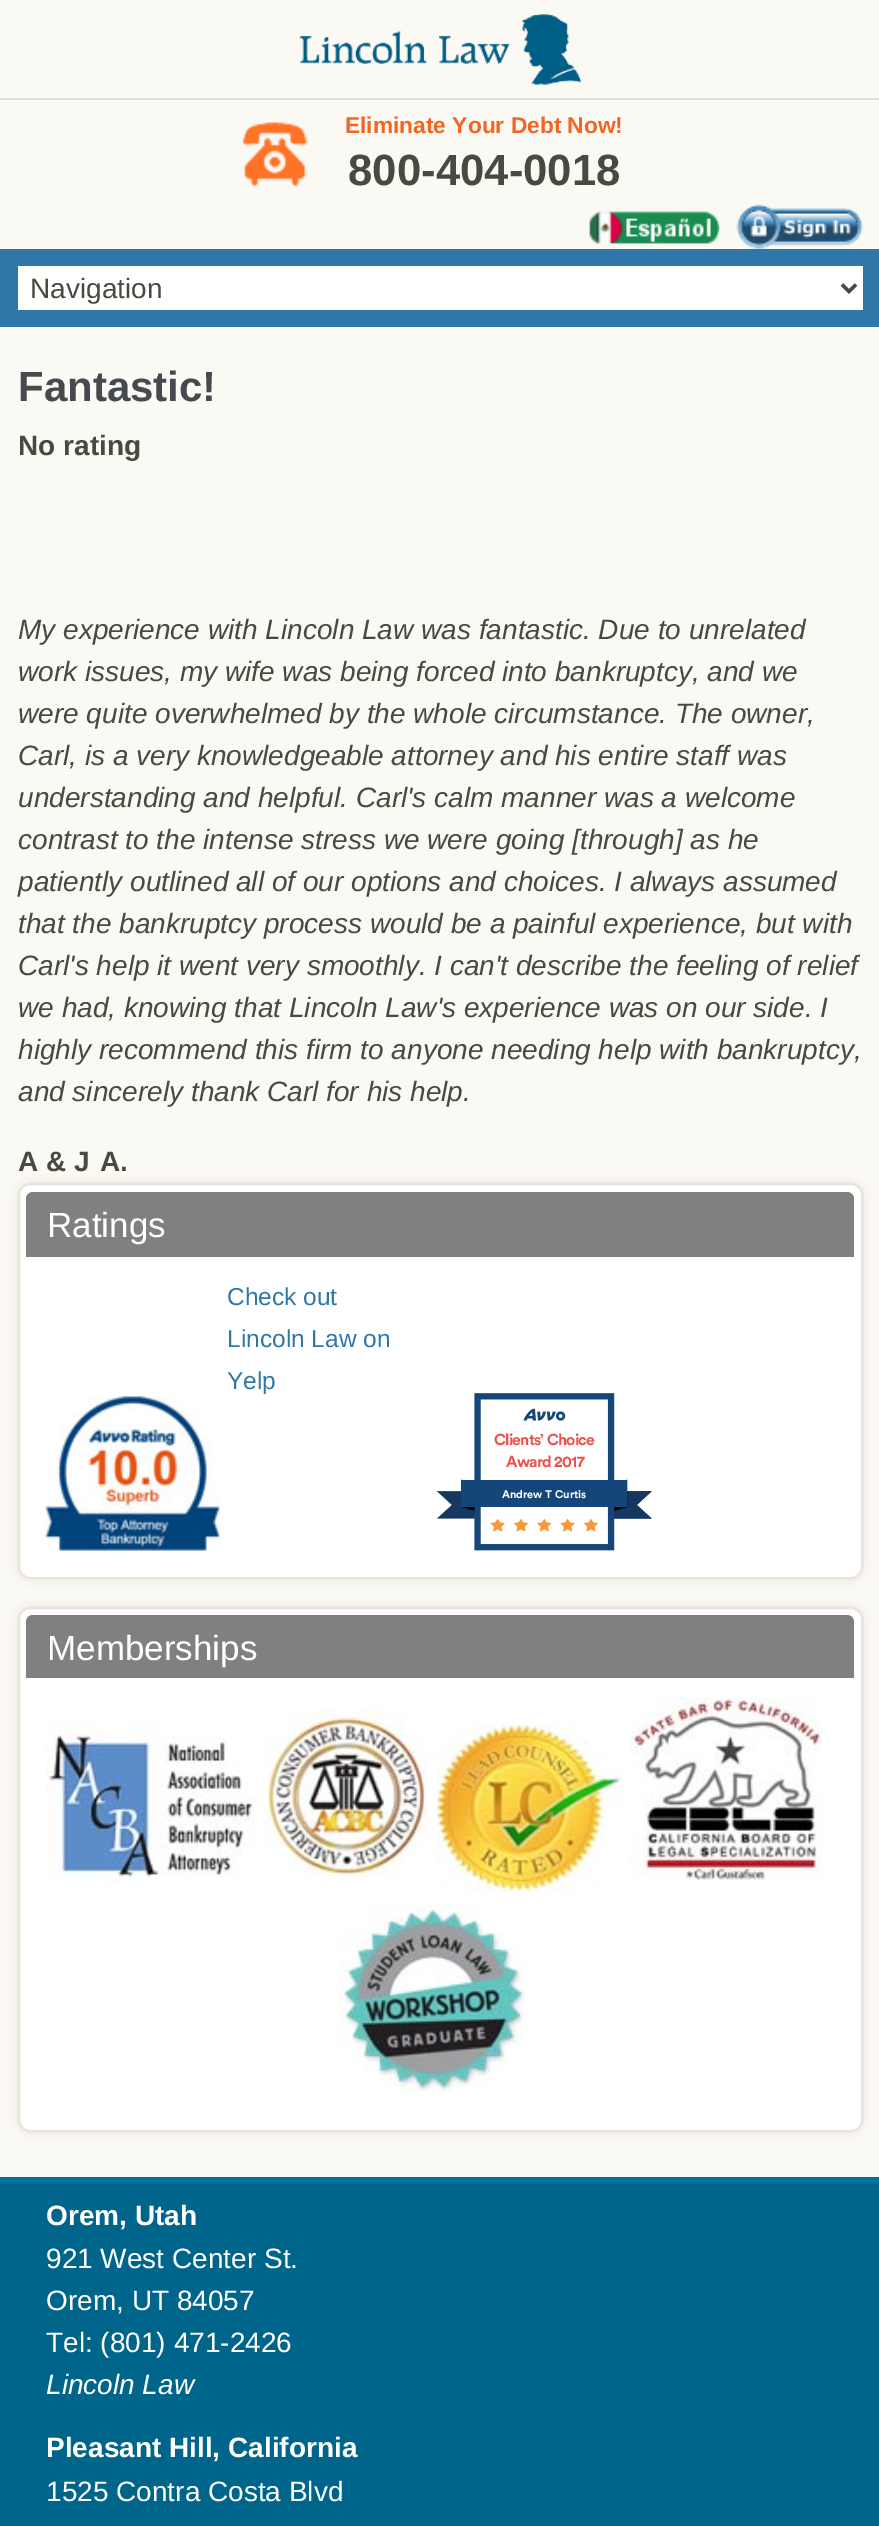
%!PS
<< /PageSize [879 2526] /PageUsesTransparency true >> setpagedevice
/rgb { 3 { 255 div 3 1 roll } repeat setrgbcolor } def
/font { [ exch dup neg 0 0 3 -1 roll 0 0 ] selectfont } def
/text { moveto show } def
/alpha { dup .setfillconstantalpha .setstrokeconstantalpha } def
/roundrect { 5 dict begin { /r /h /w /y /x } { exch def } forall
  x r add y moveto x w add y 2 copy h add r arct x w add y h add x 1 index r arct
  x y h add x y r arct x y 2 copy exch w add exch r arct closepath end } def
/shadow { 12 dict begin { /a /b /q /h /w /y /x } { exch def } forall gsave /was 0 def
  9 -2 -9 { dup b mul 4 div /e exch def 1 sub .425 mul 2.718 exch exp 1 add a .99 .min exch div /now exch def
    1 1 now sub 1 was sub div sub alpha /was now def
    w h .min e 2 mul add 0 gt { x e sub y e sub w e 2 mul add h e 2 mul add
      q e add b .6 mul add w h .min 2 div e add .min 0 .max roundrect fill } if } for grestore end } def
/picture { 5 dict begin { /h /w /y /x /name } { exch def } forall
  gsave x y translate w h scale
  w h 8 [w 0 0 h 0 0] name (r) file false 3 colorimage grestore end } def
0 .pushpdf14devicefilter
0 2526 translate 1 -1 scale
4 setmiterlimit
251 249 244 rgb
0 0 879 2526 rectfill
221 221 221 rgb
0 98 879 2 rectfill
(img_01.rgb) 299 13 283 72 picture
(img_02.rgb) 243 122 65 65 picture
(img_03.rgb) 589 211 131 33 picture
(img_04.rgb) 736 204 127 45 picture
47 119 169 rgb
0 249 879 78 rectfill
255 255 255 rgb
18 266 845 44 rectfill
72 74 63 rgb
3.5 setlinewidth
842 284.5 moveto 7 7 rlineto 7 -7 rlineto stroke
232 228 219 rgb
18 1183 845 396 12 4.5 1 shadow
255 255 255 rgb
19 1184 843 394 11 roundrect gsave fill grestore
232 228 219 rgb
2 setlinewidth
stroke
128 128 128 rgb
33 1192 moveto 814 0 rlineto 4 0 7 3 7 7 rcurveto 0 58 rlineto -828 0 rlineto 0 -58 rlineto 0 -4 3 -7 7 -7 rcurveto closepath fill
(img_05.rgb) 45 1396 176 155 picture
(img_06.rgb) 436 1393 216 158 picture
232 228 219 rgb
18 1607 845 525 12 4.5 1 shadow
255 255 255 rgb
19 1608 843 523 11 roundrect gsave fill grestore
232 228 219 rgb
stroke
128 128 128 rgb
33 1615 moveto 814 0 rlineto 4 0 7 3 7 7 rcurveto 0 56 rlineto -828 0 rlineto 0 -56 rlineto 0 -4 3 -7 7 -7 rcurveto closepath fill
(img_07.rgb) 46 1722 209 161 picture
(img_08.rgb) 263 1708 166 169 picture
(img_09.rgb) 436 1724 187 168 picture
(img_10.rgb) 630 1697 193 183 picture
(img_11.rgb) 338 1904 187 187 picture
0 101 138 rgb
0 2184 879 342 rectfill
0 112 155 rgb
0 2177 879 7 rectfill
/LiberationSans-Bold 22.75 font
242 101 34 rgb
(Eliminate Your Debt Now!) 345 133 text
/LiberationSans-Bold 43.75 font
72 74 63 rgb
(800-404-0018) 348 185 text
/LiberationSans-Regular 28 font
(Navigation) 30 298 text
/LiberationSans-Bold 42 font
70 74 78 rgb
(Fantastic!) 18 401 text
/LiberationSans-Bold 28 font
72 74 63 rgb
(No rating) 18 455 text
/LiberationSans-Italic 28 font
(My experience with Lincoln Law was fantastic. Due to unrelated) 18 639 text
(work issues, my wife was being forced into bankruptcy, and we) 18 681 text
(were quite overwhelmed by the whole circumstance. The owner,) 18 723 text
(Carl, is a very knowledgeable attorney and his entire staff was) 18 765 text
(understanding and helpful. Carl's calm manner was a welcome) 18 807 text
(contrast to the intense stress we were going [through] as he) 18 849 text
(patiently outlined all of our options and choices. I always assumed) 18 891 text
(that the bankruptcy process would be a painful experience, but with) 18 933 text
(Carl's help it went very smoothly. I can't describe the feeling of relief) 18 975 text
(we had, knowing that Lincoln Law's experience was on our side. I) 18 1017 text
(highly recommend this firm to anyone needing help with bankruptcy,) 18 1059 text
(and sincerely thank Carl for his help.) 18 1101 text
/LiberationSans-Bold 28 font
(A & J) 18 1171 text
(A.) 100 1171 text
/LiberationSans-Regular 35 font
255 255 255 rgb
(Ratings) 47 1237 text
/LiberationSans-Regular 24.5 font
47 119 169 rgb
(Check out) 227 1305 text
(Lincoln Law on) 227 1347 text
(Yelp) 227 1389 text
/Circular-Bold 15.75 font
237 81 76 rgb
494 1445 moveto -0.75 0 (Clients’ Choice) ashow
506 1467 moveto -0.75 0 (Award 2017) ashow
/Circular-Bold 11 font
255 255 255 rgb
(Andrew T Curtis) 502 1498 text
/LiberationSans-Regular 35 font
(Memberships) 47 1660 text
/LiberationSans-Bold 28 font
(Orem, Utah) 46 2225 text
/LiberationSans-Regular 28 font
(921 West Center St.) 46 2268 text
(Orem, UT 84057) 46 2310 text
(Tel: \(801\) 471-2426) 46 2352 text
/LiberationSans-Italic 28 font
(Lincoln Law) 46 2394 text
/LiberationSans-Bold 28 font
(Pleasant Hill, California) 46 2457 text
/LiberationSans-Regular 28 font
(1525 Contra Costa Blvd) 46 2501 text
.poppdf14devicefilter showpage
